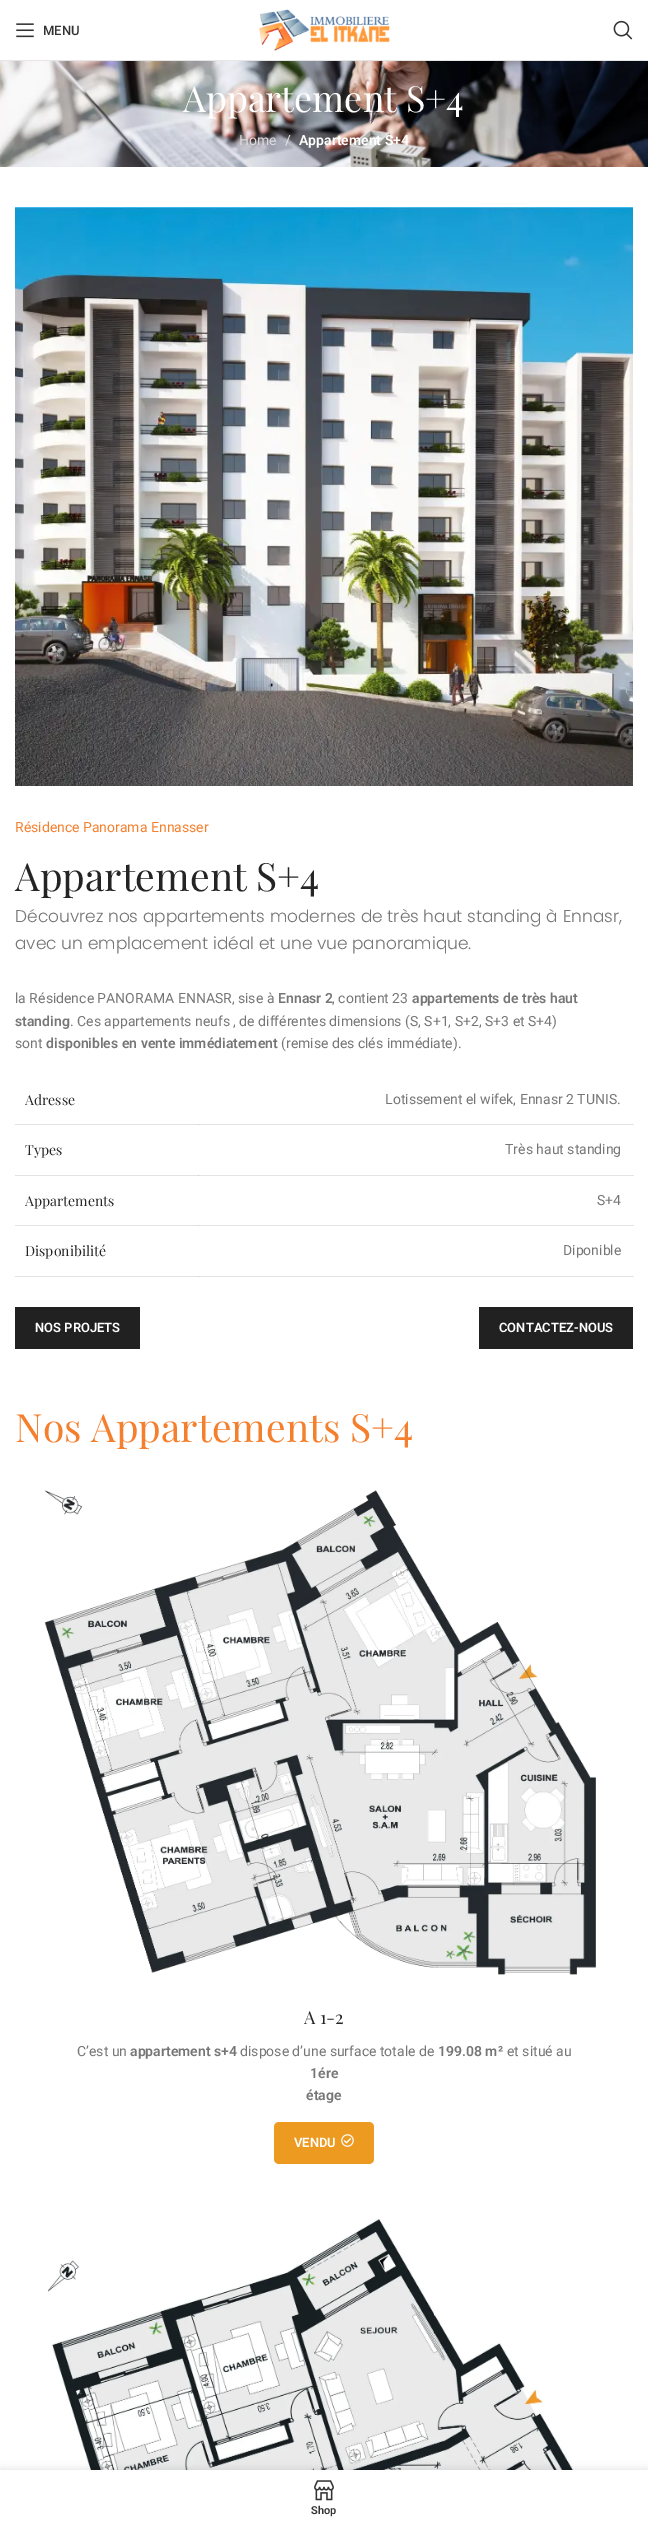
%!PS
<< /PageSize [648 2525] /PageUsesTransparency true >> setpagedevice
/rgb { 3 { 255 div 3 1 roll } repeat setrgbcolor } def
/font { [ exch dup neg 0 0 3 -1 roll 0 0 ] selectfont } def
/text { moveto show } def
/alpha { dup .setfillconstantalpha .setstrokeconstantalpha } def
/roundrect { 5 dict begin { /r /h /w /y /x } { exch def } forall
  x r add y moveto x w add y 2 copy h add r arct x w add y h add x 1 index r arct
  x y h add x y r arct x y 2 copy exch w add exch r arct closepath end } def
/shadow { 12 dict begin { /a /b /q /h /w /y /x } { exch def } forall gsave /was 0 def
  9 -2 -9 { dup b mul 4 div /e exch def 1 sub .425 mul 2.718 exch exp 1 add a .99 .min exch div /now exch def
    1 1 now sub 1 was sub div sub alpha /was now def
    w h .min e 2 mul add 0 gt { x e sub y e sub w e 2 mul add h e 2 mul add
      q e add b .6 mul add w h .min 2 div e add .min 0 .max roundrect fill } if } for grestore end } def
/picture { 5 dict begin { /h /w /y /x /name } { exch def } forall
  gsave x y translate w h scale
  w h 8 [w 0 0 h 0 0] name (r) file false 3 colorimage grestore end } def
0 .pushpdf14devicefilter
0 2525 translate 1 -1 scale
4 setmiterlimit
255 255 255 rgb
0 0 648 2525 rectfill
227 227 227 rgb
15 1124 184 1 rectfill
15 1175 184 1 rectfill
15 1225 184 1 rectfill
15 1276 184 1 rectfill
230 230 230 rgb
0 60 648 1 rectfill
(img_01.rgb) 16 23 18 15 picture
(img_02.rgb) 259 9 131 42 picture
(img_03.rgb) 613 20 20 20 picture
(img_04.rgb) 0 61 648 106 picture
(img_05.rgb) 15 207 618 579 picture
228 228 228 rgb
198 1124 436 1 rectfill
203 203 203 rgb
198 1124 1 1 rectfill
228 228 228 rgb
198 1175 436 1 rectfill
203 203 203 rgb
198 1175 1 1 rectfill
228 228 228 rgb
198 1225 436 1 rectfill
203 203 203 rgb
198 1225 1 1 rectfill
228 228 228 rgb
198 1276 436 1 rectfill
203 203 203 rgb
198 1276 1 1 rectfill
33 33 33 rgb
15 1307 125 42 rectfill
479 1307 154 42 rectfill
(img_06.rgb) 44 1490 552 485 picture
237 154 33 rgb
274 2122 100 42 5 roundrect fill
(img_07.rgb) 341 2134 13 13 picture
(img_08.rgb) 47 2219 550 251 picture
0 0 0 rgb
0 2470 648 55 0 4.5 0.12 shadow
255 255 255 rgb
0 2470 648 55 rectfill
(img_09.rgb) 314 2480 20 21 picture
/Roboto-Medium 13 font
51 51 51 rgb
(MENU) 43 35 text
/PlayfairDisplay-Regular 36 font
255 255 255 rgb
(Appartement S+4) 183 112 text
/Roboto-Regular 14 font
221 219 221 rgb
(Home) 239 145 text
231 231 233 rgb
(/) 285 145 text
/Roboto-SemiBold 14 font
255 255 255 rgb
(Appartement S+4) 299 145 text
/Roboto-Regular 14 font
244 128 46 rgb
(Résidence Panorama Ennasser) 15 832 text
/PlayfairDisplay-Regular 39 font
36 36 36 rgb
(Appartement S+4) 15 891 text
/Poppins-Light 17 font
118 118 118 rgb
(Découvrez nos appartements modernes de très haut standing à Ennasr,) 15 922 text
(avec un emplacement idéal et une vue panoramique.) 15 949 text
/Roboto-Regular 14 font
(la Résidence PANORAMA ENNASR, sise à) 15 1003 text
/Roboto-SemiBold 14 font
(Ennasr 2) 278 1003 text
/Roboto-Regular 14 font
(, contient 23) 332 1003 text
/Roboto-SemiBold 14 font
(appartements de très haut) 412 1003 text
(standing) 15 1026 text
/Roboto-Regular 14 font
(. Ces appartements neufs , de différentes dimensions \(S, S+1, S+2, S+3 et S+4\)) 70 1026 text
(sont) 15 1048 text
/Roboto-SemiBold 14 font
(disponibles en vente immédiatement) 46 1048 text
/Roboto-Regular 14 font
(\(remise des clés immédiate\).) 281 1048 text
/PlayfairDisplay-Regular 14 font
36 36 36 rgb
(Adresse) 25 1105 text
/Roboto-Regular 14 font
118 118 118 rgb
(Lotissement el wifek, Ennasr 2 TUNIS.) 385 1104 text
/PlayfairDisplay-Regular 14 font
36 36 36 rgb
(Types) 25 1155 text
/Roboto-Regular 14 font
118 118 118 rgb
(Très haut standing) 505 1154 text
/PlayfairDisplay-Regular 14 font
36 36 36 rgb
(Appartements) 25 1206 text
/Roboto-Regular 14 font
118 118 118 rgb
(S+4) 597 1205 text
/PlayfairDisplay-Regular 14 font
36 36 36 rgb
(Disponibilité) 25 1256 text
/Roboto-Regular 14 font
118 118 118 rgb
(Diponible) 563 1255 text
/Roboto-SemiBold 13 font
255 255 255 rgb
(NOS PROJETS) 35 1332 text
(CONTACTEZ-NOUS) 499 1332 text
/PlayfairDisplay-Regular 39 font
244 128 46 rgb
(Nos Appartements S+4) 15 1442 text
/PlayfairDisplay-Regular 18 font
36 36 36 rgb
(A 1-2) 304 2024 text
/Roboto-Regular 14 font
118 118 118 rgb
(C’est un) 77 2056 text
/Roboto-SemiBold 14 font
(appartement s+4) 130 2056 text
/Roboto-Regular 14 font
(dispose d’une surface totale de) 240 2056 text
/Roboto-SemiBold 14 font
(199.08 m²) 438 2056 text
/Roboto-Regular 14 font
(et situé au) 507 2056 text
/Roboto-SemiBold 14 font
(1ére) 310 2078 text
(étage) 306 2100 text
/Roboto-SemiBold 13 font
255 255 255 rgb
(VENDU) 294 2147 text
/Roboto-SemiBold 11 font
51 51 51 rgb
(Shop) 311 2514 text
.poppdf14devicefilter showpage
